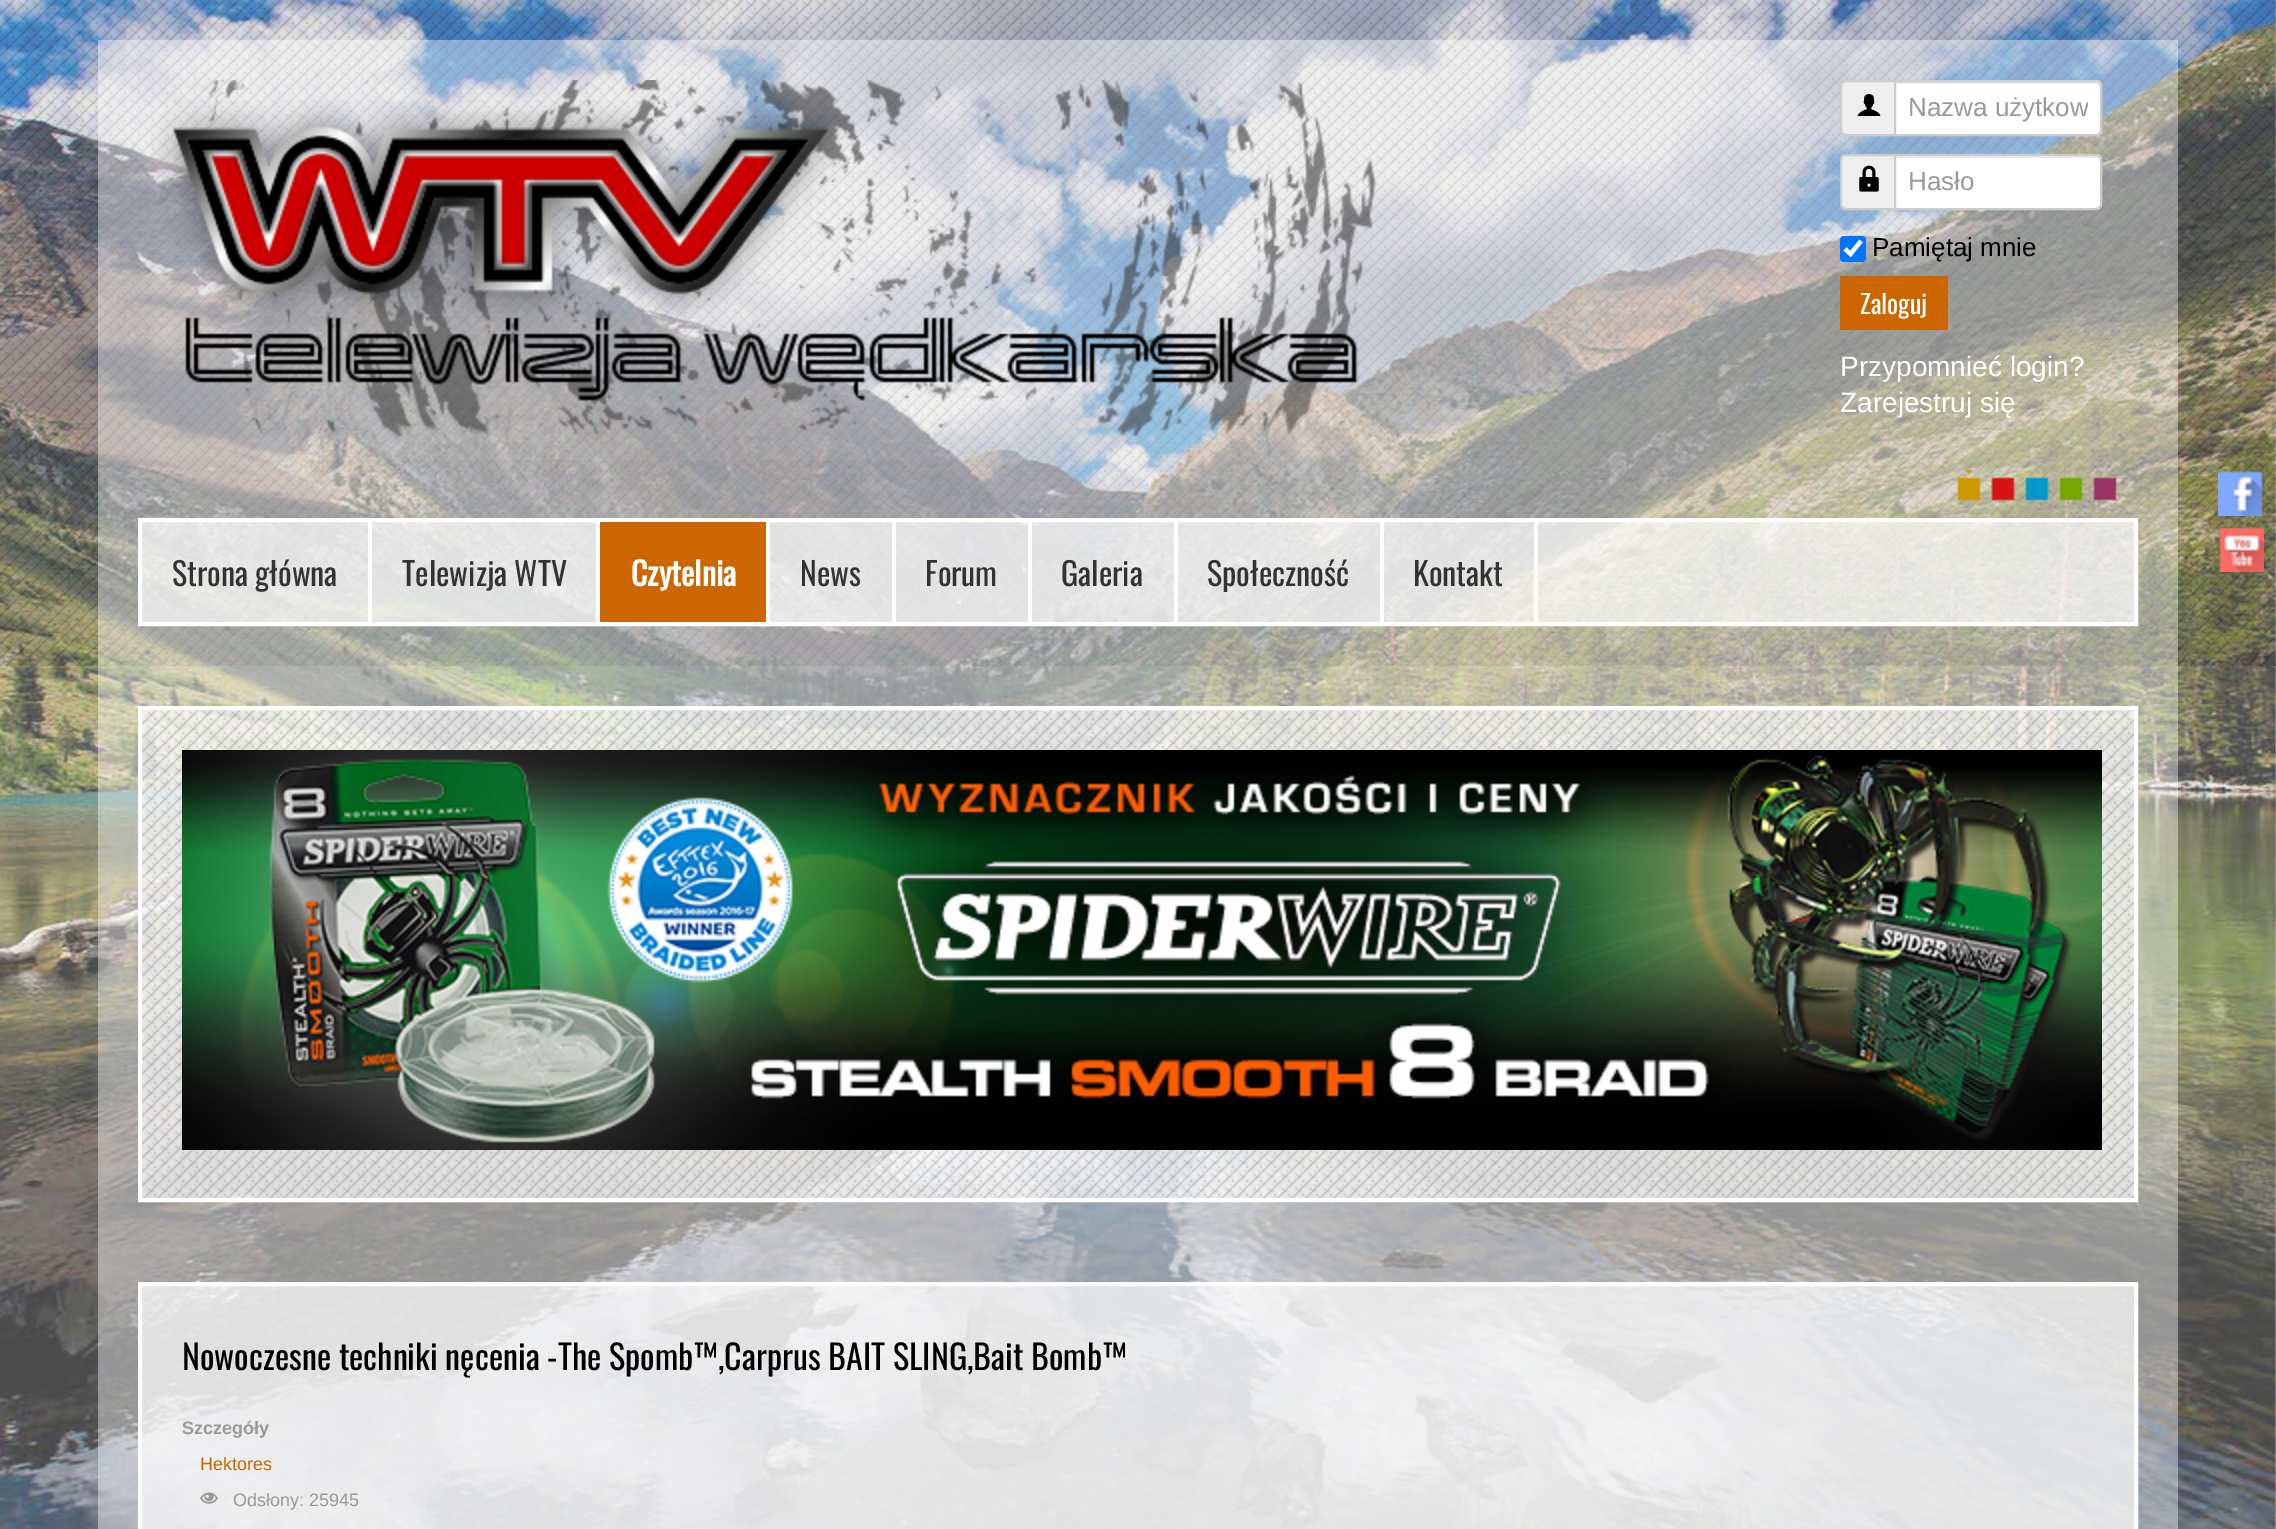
%!PS
<< /PageSize [2276 1529] /PageUsesTransparency true >> setpagedevice
/rgb { 3 { 255 div 3 1 roll } repeat setrgbcolor } def
/font { [ exch dup neg 0 0 3 -1 roll 0 0 ] selectfont } def
/text { moveto show } def
/alpha { dup .setfillconstantalpha .setstrokeconstantalpha } def
/roundrect { 5 dict begin { /r /h /w /y /x } { exch def } forall
  x r add y moveto x w add y 2 copy h add r arct x w add y h add x 1 index r arct
  x y h add x y r arct x y 2 copy exch w add exch r arct closepath end } def
/picture { 5 dict begin { /h /w /y /x /name } { exch def } forall
  gsave x y translate w h scale
  w h 8 [w 0 0 h 0 0] name (r) file false 3 colorimage grestore end } def
0 .pushpdf14devicefilter
0 1529 translate 1 -1 scale
4 setmiterlimit
255 255 255 rgb
0 0 2276 1529 rectfill
(img_01.rgb) 0 0 2276 1529 picture
0.1 alpha
0 0 0 rgb
0 0 2276 666 rectfill
1 alpha
(img_02.rgb) 0 0 2276 666 picture
0.4 alpha
255 255 255 rgb
98 40 2080 626 rectfill
1 alpha
(img_03.rgb) 151 80 1234 380 picture
238 238 238 rgb
1846 81 moveto 49 0 rlineto 0 54 rlineto -49 0 rlineto -3 0 -5 -2 -5 -5 rcurveto 0 -44 rlineto 0 -3 2 -5 5 -5 rcurveto closepath gsave fill grestore
204 204 204 rgb
2 setlinewidth
stroke
(img_04.rgb) 1857 94 24 22 picture
255 255 255 rgb
1894 80 moveto 202 0 rlineto 3.5 0 6 2.5 6 6 rcurveto 0 44 rlineto 0 3.5 -2.5 6 -6 6 rcurveto -202 0 rlineto closepath fill
236 236 236 rgb
1896 84 moveto 200 0 rlineto 2 0 4 2 4 4 rcurveto 0 -3 0 -6 -4 -6 rcurveto -200 0 rlineto closepath fill
204 204 204 rgb
1895 81 moveto 201 0 rlineto 3 0 5 2 5 5 rcurveto 0 44 rlineto 0 3 -2 5 -5 5 rcurveto -201 0 rlineto closepath stroke
238 238 238 rgb
1846 155 moveto 49 0 rlineto 0 54 rlineto -49 0 rlineto -3 0 -5 -2 -5 -5 rcurveto 0 -44 rlineto 0 -3 2 -5 5 -5 rcurveto closepath gsave fill grestore
204 204 204 rgb
stroke
(img_05.rgb) 1859 165 20 27 picture
255 255 255 rgb
1894 154 moveto 202 0 rlineto 3.5 0 6 2.5 6 6 rcurveto 0 44 rlineto 0 3.5 -2.5 6 -6 6 rcurveto -202 0 rlineto closepath fill
236 236 236 rgb
1896 158 moveto 200 0 rlineto 2 0 4 2 4 4 rcurveto 0 -3 0 -6 -4 -6 rcurveto -200 0 rlineto closepath fill
204 204 204 rgb
1895 155 moveto 201 0 rlineto 3 0 5 2 5 5 rcurveto 0 44 rlineto 0 3 -2 5 -5 5 rcurveto -201 0 rlineto closepath stroke
0 117 255 rgb
1840 236 26 26 4 roundrect fill
255 255 255 rgb
4.2 setlinewidth
1845 249 moveto 5.5 5 rlineto 10.5 -13 rlineto stroke
204 102 0 rgb
1840 276 108 54 rectfill
(img_06.rgb) 1957 469 24 32 picture
(img_07.rgb) 1991 477 24 24 picture
(img_08.rgb) 2025 477 24 24 picture
(img_09.rgb) 2059 477 24 24 picture
(img_10.rgb) 2093 477 24 24 picture
0.7 alpha
255 255 255 rgb
140 520 moveto 1996 0 rlineto 0 104 rlineto -1996 0 rlineto closepath fill
1 alpha
4 setlinewidth
140 520 moveto 1996 0 rlineto 0 104 rlineto -1996 0 rlineto closepath stroke
368 522 4 100 rectfill
596 522 4 100 rectfill
204 102 0 rgb
600 522 166 100 rectfill
255 255 255 rgb
766 522 4 100 rectfill
892 522 4 100 rectfill
1028 522 4 100 rectfill
1174 522 4 100 rectfill
1380 522 4 100 rectfill
1534 522 4 100 rectfill
0.4 alpha
98 666 2080 576 rectfill
0.7 alpha
142 710 1992 488 rectfill
1 alpha
(img_11.rgb) 142 710 1992 488 picture
140 708 1996 492 rectstroke
(img_12.rgb) 182 750 1920 400 picture
0.4 alpha
98 1242 2080 287 rectfill
0.7 alpha
140 1284 moveto 1996 0 rlineto 0 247 rlineto -1996 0 rlineto closepath fill
1 alpha
140 1284 moveto 1996 0 rlineto 0 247 rlineto -1996 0 rlineto closepath stroke
(img_13.rgb) 200 1492 18 12 picture
(img_14.rgb) 2218 471 45 45 picture
(img_15.rgb) 2219 527 45 45 picture
gsave
1908 92 180 30 rectclip
/LiberationSans-Regular 26 font
153 153 153 rgb
(Nazwa użytkow) 1908 116 text
grestore
/LiberationSans-Regular 26 font
153 153 153 rgb
(Hasło) 1908 190 text
0 0 0 rgb
(Pamiętaj mnie) 1872 256 text
/Oswald-Regular 26 font
255 255 255 rgb
(Zaloguj) 1860 314 text
/LiberationSans-Regular 28 font
(Przypomnieć login?) 1840 376 text
(Zarejestruj się) 1840 412 text
/Oswald-Regular 32 font
51 51 51 rgb
(Strona główna) 172 586 text
(Telewizja WTV) 402 586 text
/Oswald-Bold 32 font
255 255 255 rgb
(Czytelnia) 631 586 text
/Oswald-Regular 32 font
51 51 51 rgb
(News) 800 586 text
(Forum) 925 586 text
(Galeria) 1061 586 text
(Społeczność) 1207 586 text
(Kontakt) 1413 586 text
/Oswald-Regular 34 font
0 0 0 rgb
(Nowoczesne techniki nęcenia -The Spomb™,Carprus BAIT SLING,Bait Bomb™) 182 1370 text
/LiberationSans-Bold 18 font
153 153 153 rgb
(Szczegóły) 182 1434 text
/LiberationSans-Regular 18 font
204 102 0 rgb
(Hektores) 200 1470 text
153 153 153 rgb
(Odsłony: 25945) 233 1506 text
.poppdf14devicefilter showpage
